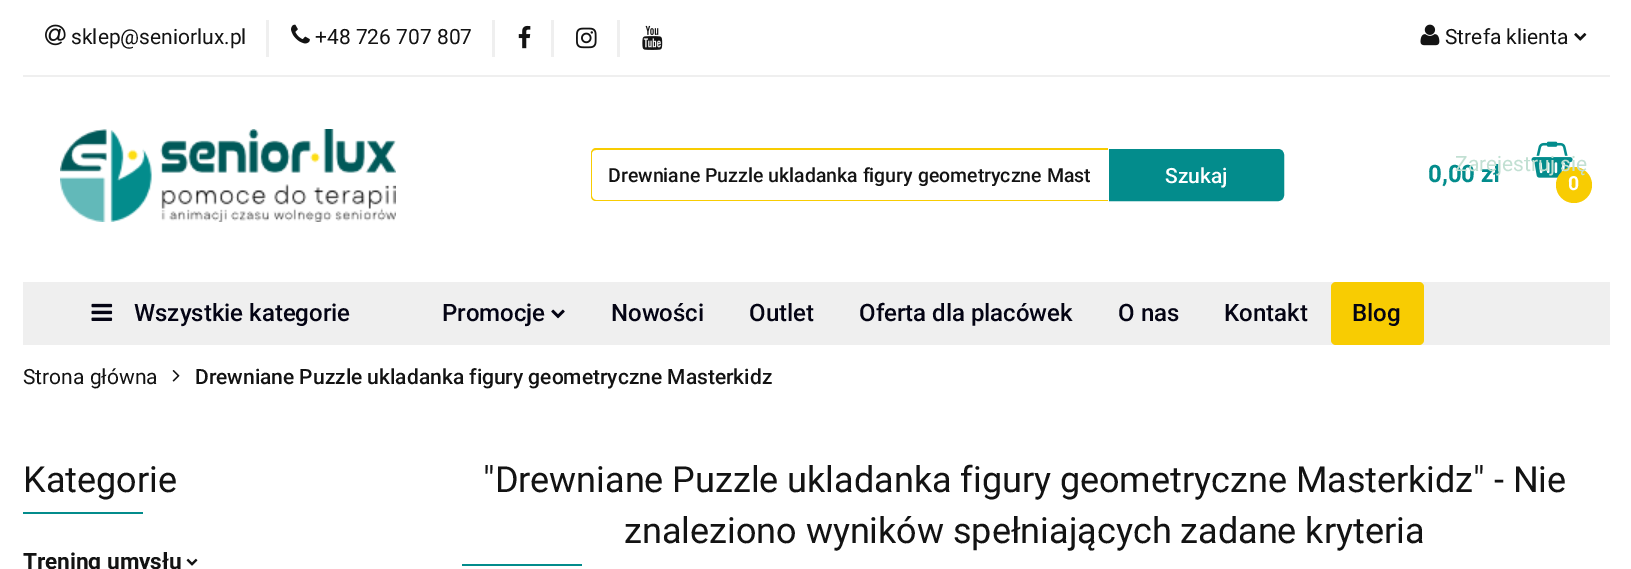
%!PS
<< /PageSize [1631 569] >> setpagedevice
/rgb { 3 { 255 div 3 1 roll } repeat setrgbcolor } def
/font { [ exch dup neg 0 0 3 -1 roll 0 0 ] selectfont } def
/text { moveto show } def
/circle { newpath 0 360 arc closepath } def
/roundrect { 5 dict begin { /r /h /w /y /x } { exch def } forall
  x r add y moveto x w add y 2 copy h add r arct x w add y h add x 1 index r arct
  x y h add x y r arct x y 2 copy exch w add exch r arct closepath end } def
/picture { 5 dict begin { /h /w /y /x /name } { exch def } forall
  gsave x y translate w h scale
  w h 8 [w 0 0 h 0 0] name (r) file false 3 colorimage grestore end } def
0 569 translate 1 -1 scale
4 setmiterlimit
255 255 255 rgb
0 0 1631 569 rectfill
239 239 239 rgb
23 75 1587 2 rectfill
(img_01.rgb) 45 24 21 22 picture
266 20 3 37 rectfill
(img_02.rgb) 291 24 19 20 picture
492 20 3 37 rectfill
(img_03.rgb) 518 25 13 24 picture
551 20 3 37 rectfill
(img_04.rgb) 576 27 21 22 picture
617 20 3 37 rectfill
(img_05.rgb) 642 25 21 25 picture
(img_06.rgb) 1420 24 20 22 picture
(img_07.rgb) 1574 33 13 8 picture
(img_08.rgb) 60 129 336 93 picture
248 204 2 rgb
596 148 moveto 512 0 rlineto 0 53 rlineto -512 0 rlineto -3 0 -5 -2 -5 -5 rcurveto 0 -43 rlineto 0 -2 2 -5 5 -5 rcurveto closepath 596 150 moveto 512 0 rlineto 0 50 rlineto -512 0 rlineto -2 0 -4 -2 -4 -4 rcurveto 0 -43 rlineto 0 -2 2 -3 4 -3 rcurveto closepath eofill
3 140 140 rgb
1111.5 151.5 moveto 166.5 0 rlineto 2 0 3.5 1.5 3.5 3.5 rcurveto 0 40 rlineto 0 2 -1.5 3.5 -3.5 3.5 rcurveto -166.5 0 rlineto closepath gsave fill grestore
5 setlinewidth
stroke
(img_09.rgb) 1531 141 42 37 picture
248 204 2 rgb
1574 185 18 circle fill
239 239 239 rgb
23 282 1587 63 rectfill
(img_10.rgb) 91 303 22 18 picture
(img_11.rgb) 551 309 14 10 picture
248 204 2 rgb
1331 282 93 63 5 roundrect fill
(img_12.rgb) 172 370 8 12 picture
3 140 140 rgb
23 512 120 2 rectfill
(img_13.rgb) 186 558 12 8 picture
462 564 120 2 rectfill
/Roboto-Regular 21 font
19 19 19 rgb
(sklep@seniorlux.pl) 71 44 text
(+48 726 707 807) 315 44 text
(Strefa klienta) 1445 44 text
gsave
608 164 486 22 rectclip
/Roboto-Medium 19.5 font
(Drewniane Puzzle ukladanka figury geometryczne Mast) 608 182 text
grestore
/Roboto-Medium 21 font
255 255 255 rgb
(Szukaj) 1165 183 text
/Roboto-Bold 24 font
3 140 140 rgb
(0,00 zł) 1428 182 text
/Roboto-Regular 21 font
194 224 211 rgb
(Zarejestruj się) 1455 171 text
/Roboto-Bold 19.5 font
255 255 255 rgb
(0) 1568 190 text
/Roboto-Medium 24 font
4 4 20 rgb
(Wszystkie kategorie) 134 321 text
(Promocje) 442 321 text
(Nowości) 611 321 text
(Outlet) 749 321 text
(Oferta dla placówek) 859 321 text
(O nas) 1118 321 text
(Kontakt) 1224 321 text
(Blog) 1352 321 text
/Roboto-Regular 21 font
19 19 19 rgb
(Strona główna) 23 384 text
/Roboto-Medium 21 font
(Drewniane Puzzle ukladanka figury geometryczne Masterkidz) 195 384 text
/Roboto-Regular 36 font
(Kategorie) 23 492 text
/Roboto-Bold 22.5 font
(Trening umysłu) 23 569 text
/Roboto-Regular 36 font
("Drewniane Puzzle ukladanka figury geometryczne Masterkidz" - Nie) 483 492 text
(znaleziono wyników spełniających zadane kryteria) 624 543 text
showpage
